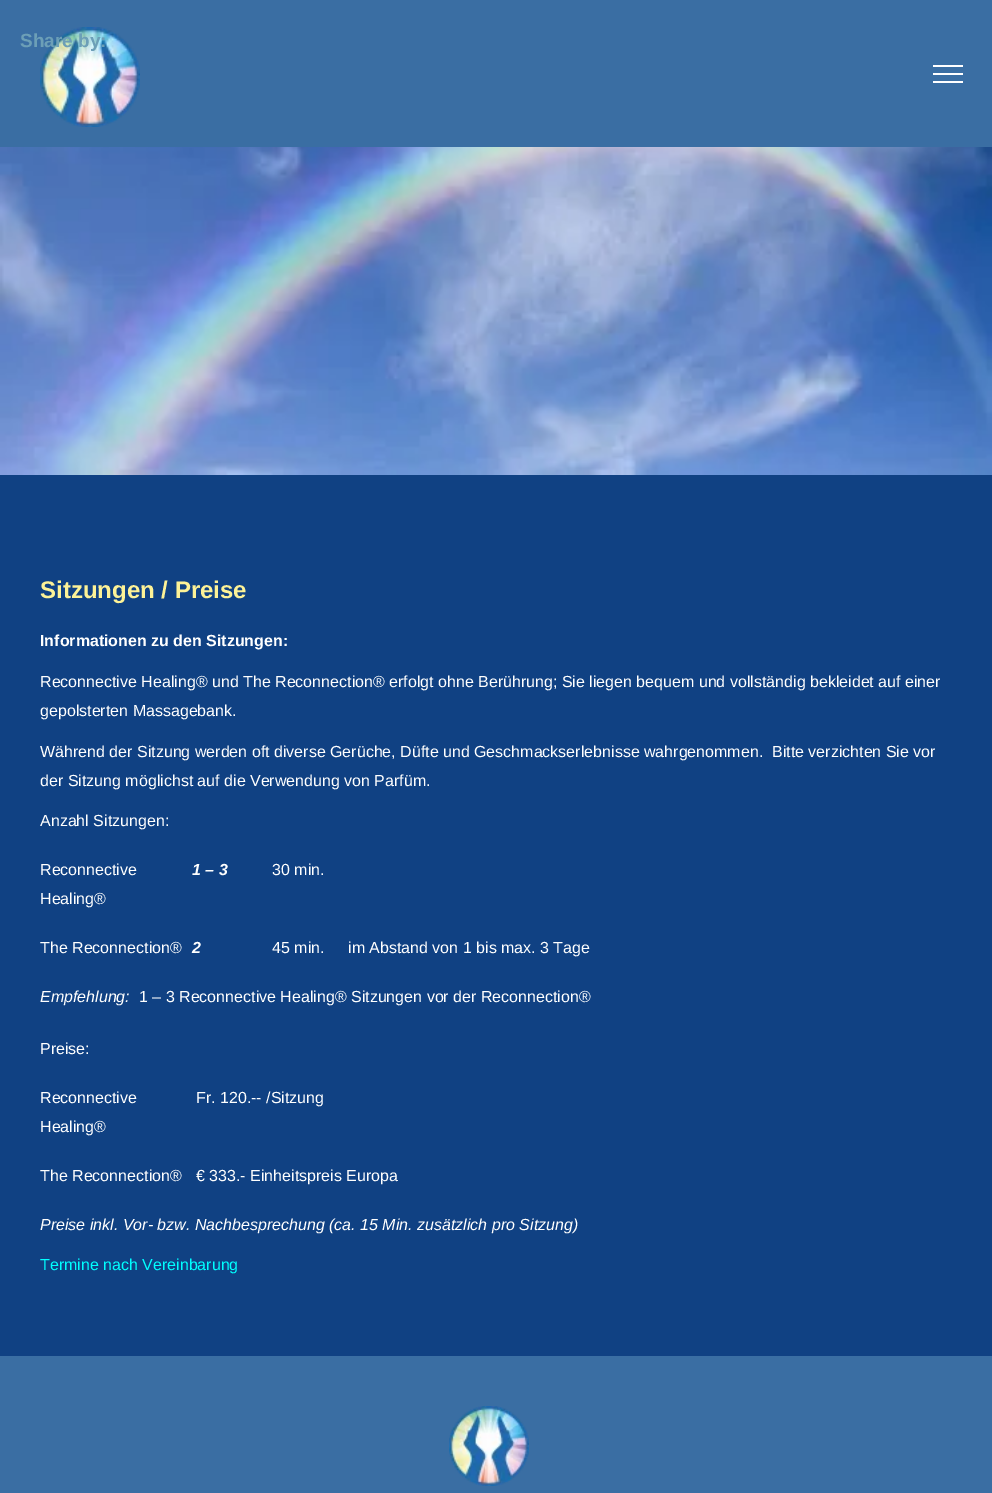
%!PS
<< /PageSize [992 1493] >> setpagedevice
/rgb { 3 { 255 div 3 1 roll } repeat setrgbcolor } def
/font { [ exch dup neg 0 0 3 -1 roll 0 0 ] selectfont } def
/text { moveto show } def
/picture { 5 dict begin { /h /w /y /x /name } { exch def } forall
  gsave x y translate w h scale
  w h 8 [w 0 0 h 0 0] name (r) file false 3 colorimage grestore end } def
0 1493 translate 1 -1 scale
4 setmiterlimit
255 255 255 rgb
0 0 992 1493 rectfill
58 110 163 rgb
0 0 992 147 rectfill
(img_01.rgb) 40 27 100 100 picture
255 255 255 rgb
933 65 30 2 rectfill
933 73 30 2 rectfill
933 81 30 2 rectfill
(img_02.rgb) 0 147 992 328 picture
16 65 131 rgb
0 475 992 881 rectfill
58 110 163 rgb
0 1356 992 137 rectfill
(img_03.rgb) 449 1406 80 80 picture
/LiberationSans-Bold 19 font
108 159 183 rgb
(Share by:) 20 47 text
/LiberationSans-Bold 24 font
253 242 151 rgb
(Sitzungen / Preise) 40 598 text
/LiberationSans-Bold 16 font
255 255 255 rgb
(Informationen zu den Sitzungen:) 40 646 text
/LiberationSans-Regular 16 font
(Reconnective Healing® und The Reconnection® erfolgt ohne Berührung; Sie liegen bequem und vollständig bekleidet auf einer) 40 687 text
(gepolsterten Massagebank.) 40 716 text
(Während der Sitzung werden oft diverse Gerüche, Düfte und Geschmackserlebnisse wahrgenommen.  Bitte verzichten Sie vor) 40 757 text
(der Sitzung möglichst auf die Verwendung von Parfüm.) 40 786 text
(Anzahl Sitzungen:) 40 826 text
(Reconnective) 40 875 text
(Healing®) 40 904 text
/LiberationSans-BoldItalic 16 font
(1 – 3) 192 875 text
/LiberationSans-Regular 16 font
(30 min.) 272 875 text
(The Reconnection®) 40 953 text
/LiberationSans-BoldItalic 16 font
(2) 192 953 text
/LiberationSans-Regular 16 font
(45 min.) 272 953 text
(im Abstand von 1 bis max. 3 Tage) 348 953 text
/LiberationSans-Italic 16 font
(Empfehlung:) 40 1002 text
/LiberationSans-Regular 16 font
(1 – 3 Reconnective Healing® Sitzungen vor der Reconnection®) 139 1002 text
(Preise:) 40 1054 text
(Reconnective) 40 1103 text
(Healing®) 40 1132 text
(Fr. 120.-- /Sitzung) 196 1103 text
(The Reconnection®) 40 1181 text
(€ 333.- Einheitspreis Europa) 196 1181 text
/LiberationSans-Italic 16 font
(Preise inkl. Vor- bzw. Nachbesprechung \(ca. 15 Min. zusätzlich pro Sitzung\)) 40 1230 text
/LiberationSans-Regular 16 font
0 255 255 rgb
(Termine nach Vereinbarung) 40 1270 text
showpage
